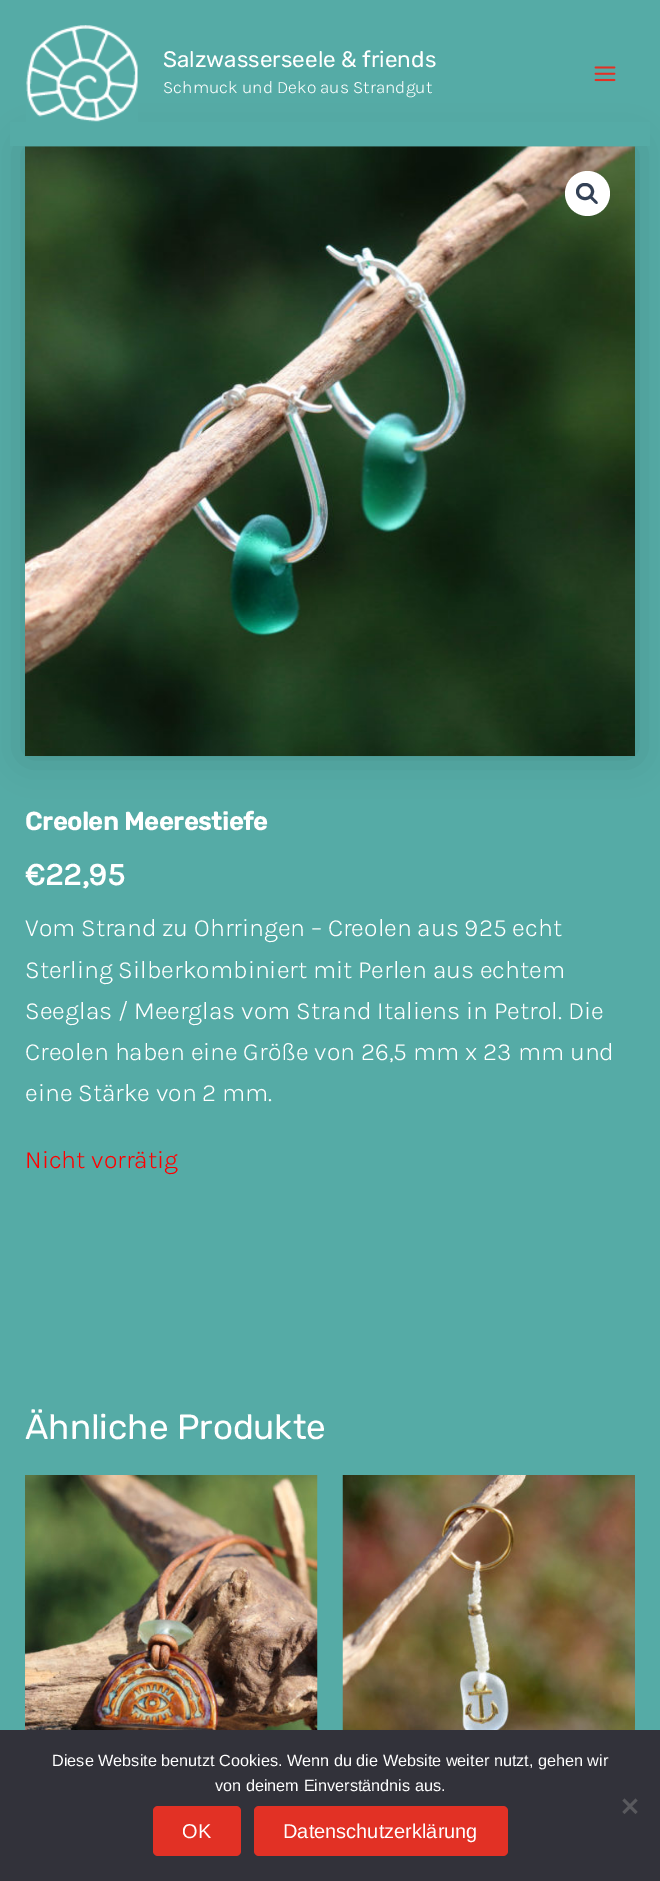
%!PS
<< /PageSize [660 1881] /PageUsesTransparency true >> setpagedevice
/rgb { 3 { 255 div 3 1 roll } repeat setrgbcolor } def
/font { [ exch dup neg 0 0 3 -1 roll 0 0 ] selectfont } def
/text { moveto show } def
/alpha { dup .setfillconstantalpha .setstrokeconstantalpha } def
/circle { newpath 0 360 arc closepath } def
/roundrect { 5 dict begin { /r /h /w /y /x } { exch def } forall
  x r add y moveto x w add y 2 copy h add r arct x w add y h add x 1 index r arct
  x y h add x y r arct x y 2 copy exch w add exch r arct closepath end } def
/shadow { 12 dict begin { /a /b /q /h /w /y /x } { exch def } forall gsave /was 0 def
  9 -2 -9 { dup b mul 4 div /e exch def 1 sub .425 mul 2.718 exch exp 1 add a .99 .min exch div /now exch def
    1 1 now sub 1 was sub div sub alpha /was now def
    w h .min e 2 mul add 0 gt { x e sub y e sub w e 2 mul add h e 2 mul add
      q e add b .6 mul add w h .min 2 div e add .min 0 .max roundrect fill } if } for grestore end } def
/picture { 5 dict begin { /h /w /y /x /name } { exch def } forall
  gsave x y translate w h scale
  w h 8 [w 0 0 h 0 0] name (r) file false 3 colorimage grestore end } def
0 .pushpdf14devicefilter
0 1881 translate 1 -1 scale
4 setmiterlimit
85 171 166 rgb
0 0 660 1881 rectfill
0 0 0 rgb
25 146 610 610 0 19 0.15 shadow
85 171 166 rgb
10 122 640 24 rectfill
(img_01.rgb) 26 25 112 97 picture
(img_02.rgb) 594 66 22 16 picture
(img_03.rgb) 25 146 610 611 picture
255 255 255 rgb
587.5 193.5 22.5 circle fill
51 65 85 rgb
3 setlinewidth
577.5 184.5 15 14 7 roundrect stroke
590 196.5 moveto 1.5 -1.5 4 2 4.5 2.5 rcurveto 1 1 4 3 3 4.5 rcurveto -1.5 1.5 -4 -2 -4.5 -2.5 rcurveto -1 -1 -4 -3 -3 -4.5 rcurveto closepath fill
(img_04.rgb) 25 1475 293 255 picture
(img_05.rgb) 342 1475 293 255 picture
50 50 58 rgb
0 1730 660 151 rectfill
89 89 93 rgb
635.5 1798.5 moveto 2 2 rlineto -13 13.5 rlineto -2 -2 rlineto closepath fill
622.5 1800.5 moveto 2 -2 rlineto 13 13.5 rlineto -2 2 rlineto closepath fill
226 49 37 rgb
153 1806 88 50 5 roundrect fill
254 1806 254 50 5 roundrect fill
/Rubik-Regular 22.5 font
255 255 255 rgb
(Salzwasserseele & friends) 163 67 text
/Karla-Light 17.5 font
(Schmuck und Deko aus Strandgut) 163 93 text
/Rubik-Bold 25 font
(Creolen Meerestiefe) 25 830 text
/Karla-Bold 32 font
(€22,95) 25 885 text
/Karla-Light 25 font
(Vom Strand zu Ohrringen – Creolen aus 925 echt) 25 936 text
(Sterling Silberkombiniert mit Perlen aus echtem) 25 978 text
(Seeglas / Meerglas vom Strand Italiens in Petrol. Die) 25 1019 text
(Creolen haben eine Größe von 26,5 mm x 23 mm und) 25 1060 text
(eine Stärke von 2 mm.) 25 1101 text
255 0 0 rgb
(Nicht vorrätig) 25 1168 text
/Rubik-Regular 35 font
255 255 255 rgb
(Ähnliche Produkte) 25 1439 text
/LiberationSans-Regular 16.25 font
(Diese Website benutzt Cookies. Wenn du die Website weiter nutzt, gehen wir) 52 1766 text
(von deinem Einverständnis aus.) 215 1791 text
/LiberationSans-Regular 20 font
(OK) 182 1838 text
(Datenschutzerklärung) 283 1838 text
.poppdf14devicefilter showpage
